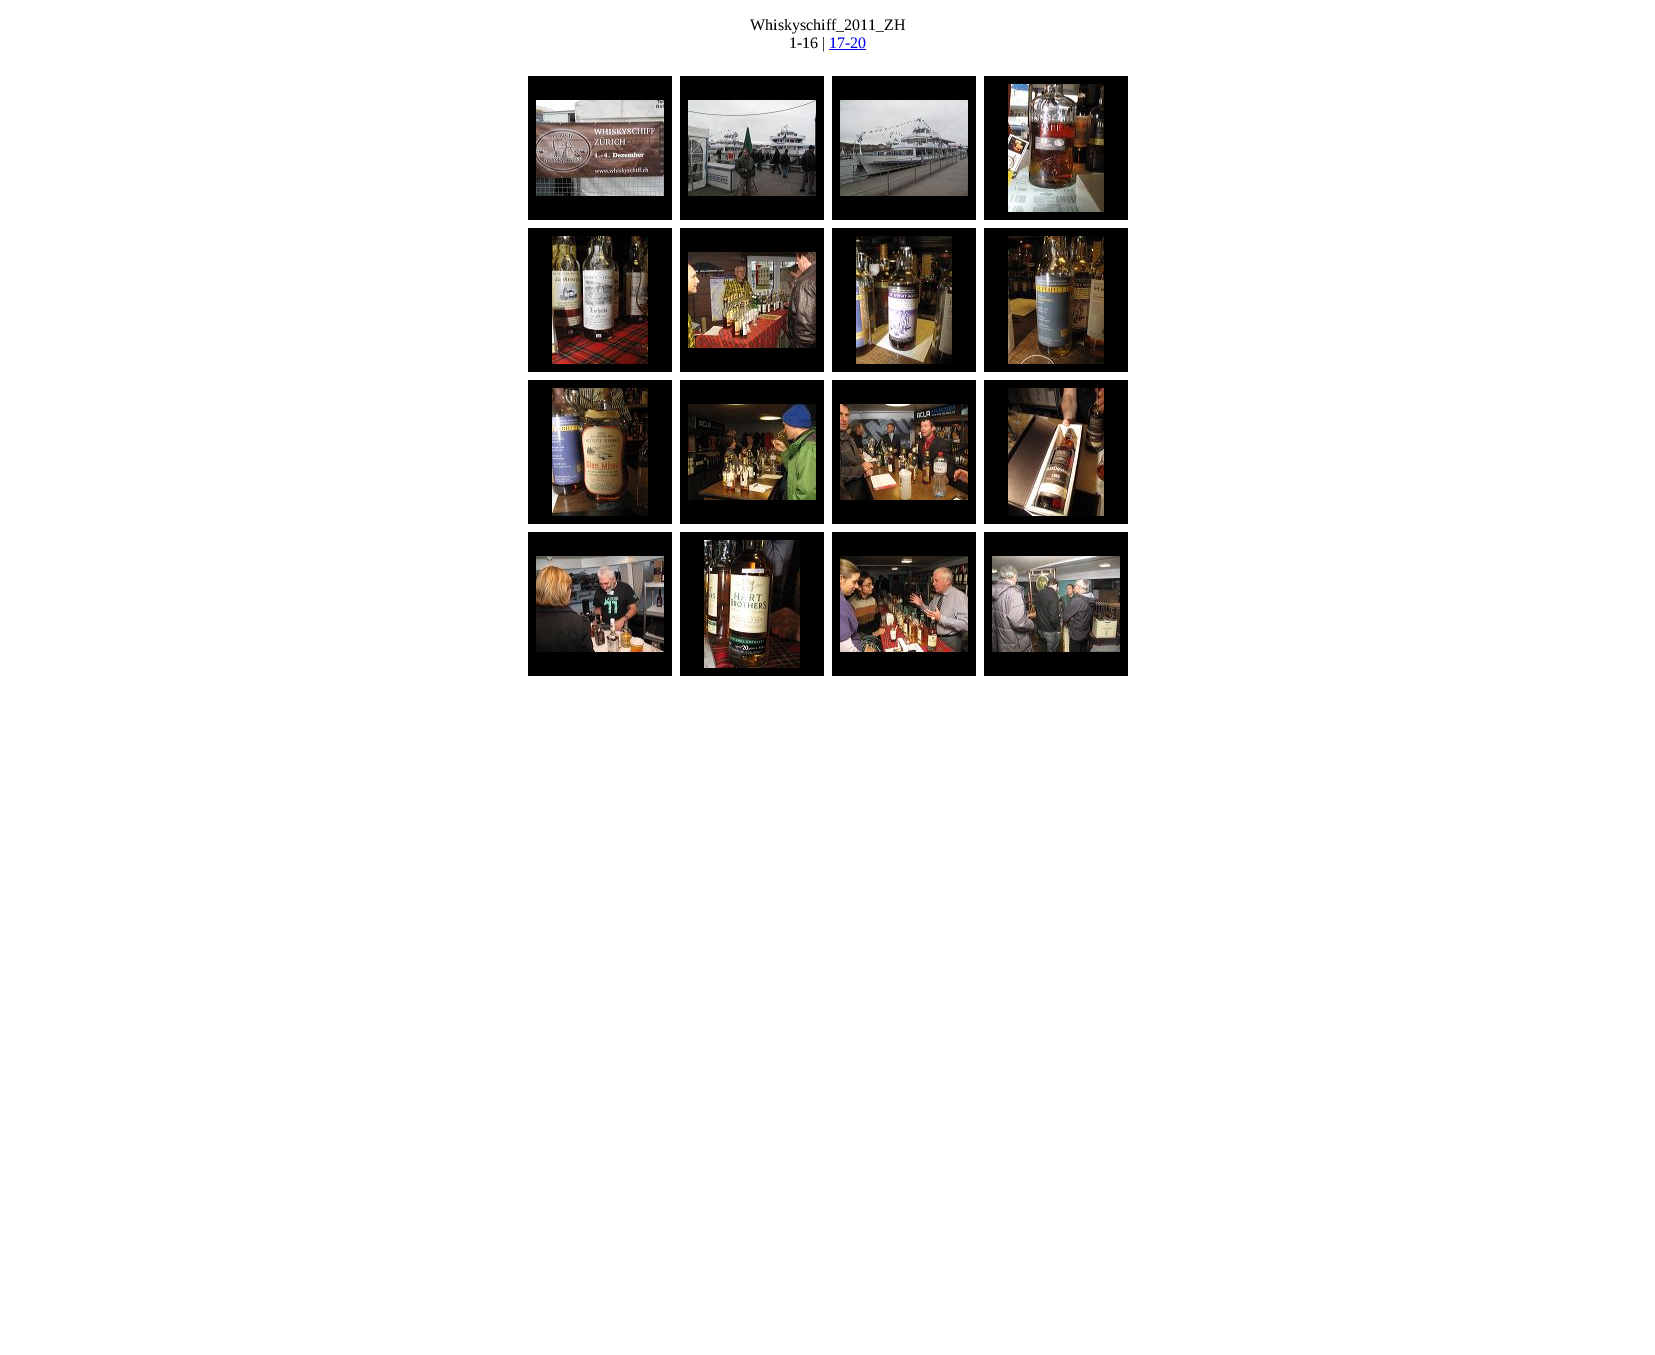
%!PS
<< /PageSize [1655 1355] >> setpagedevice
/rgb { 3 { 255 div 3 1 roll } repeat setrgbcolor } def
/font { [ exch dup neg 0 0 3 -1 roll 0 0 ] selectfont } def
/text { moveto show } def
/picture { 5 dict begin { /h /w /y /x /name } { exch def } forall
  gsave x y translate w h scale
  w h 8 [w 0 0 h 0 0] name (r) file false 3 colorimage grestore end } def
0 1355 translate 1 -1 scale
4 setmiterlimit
255 255 255 rgb
0 0 1655 1355 rectfill
0 0 238 rgb
829 49 37 1 rectfill
0 0 0 rgb
528 76 144 144 rectfill
(img_01.rgb) 536 100 128 96 picture
680 76 144 144 rectfill
(img_02.rgb) 688 100 128 96 picture
832 76 144 144 rectfill
(img_03.rgb) 840 100 128 96 picture
984 76 144 144 rectfill
(img_04.rgb) 1008 84 96 128 picture
528 228 144 144 rectfill
(img_05.rgb) 552 236 96 128 picture
680 228 144 144 rectfill
(img_06.rgb) 688 252 128 96 picture
832 228 144 144 rectfill
(img_07.rgb) 856 236 96 128 picture
984 228 144 144 rectfill
(img_08.rgb) 1008 236 96 128 picture
528 380 144 144 rectfill
(img_09.rgb) 552 388 96 128 picture
680 380 144 144 rectfill
(img_10.rgb) 688 404 128 96 picture
832 380 144 144 rectfill
(img_11.rgb) 840 404 128 96 picture
984 380 144 144 rectfill
(img_12.rgb) 1008 388 96 128 picture
528 532 144 144 rectfill
(img_13.rgb) 536 556 128 96 picture
680 532 144 144 rectfill
(img_14.rgb) 704 540 96 128 picture
832 532 144 144 rectfill
(img_15.rgb) 840 556 128 96 picture
984 532 144 144 rectfill
(img_16.rgb) 992 556 128 96 picture
/LiberationSerif-Regular 16 font
(Whiskyschiff_2011_ZH) 750 30 text
(1-16 |) 789 48 text
0 0 238 rgb
(17-20) 829 48 text
showpage
